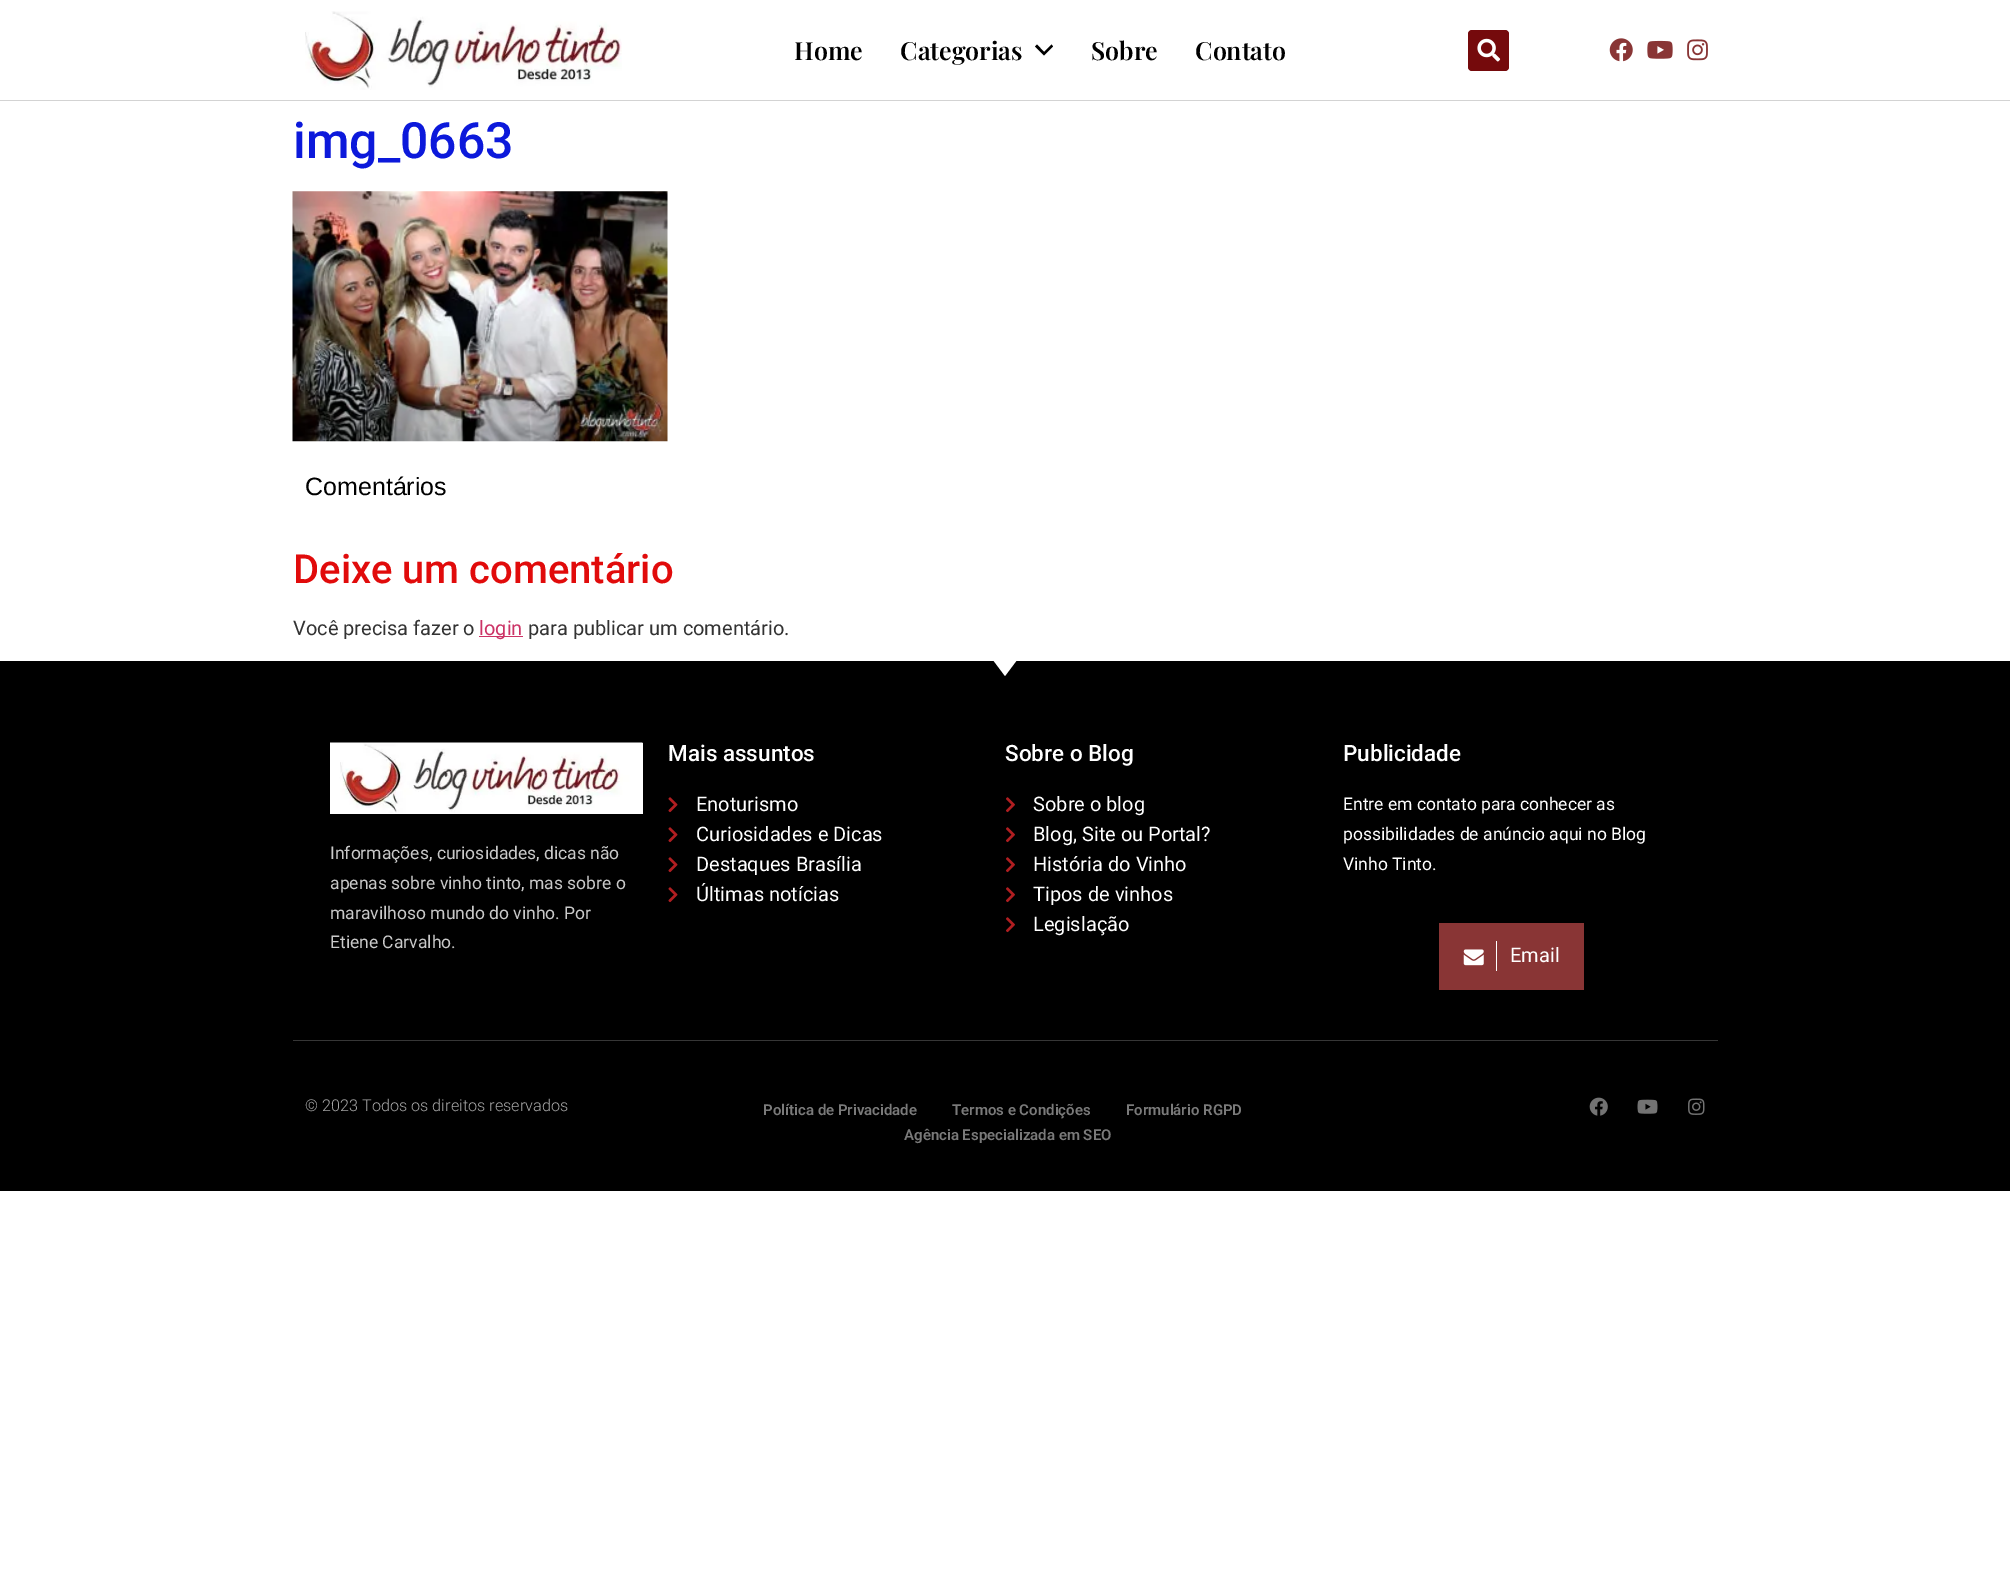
%!PS
<< /PageSize [2010 1577] >> setpagedevice
/rgb { 3 { 255 div 3 1 roll } repeat setrgbcolor } def
/font { [ exch dup neg 0 0 3 -1 roll 0 0 ] selectfont } def
/text { moveto show } def
/roundrect { 5 dict begin { /r /h /w /y /x } { exch def } forall
  x r add y moveto x w add y 2 copy h add r arct x w add y h add x 1 index r arct
  x y h add x y r arct x y 2 copy exch w add exch r arct closepath end } def
/picture { 5 dict begin { /h /w /y /x /name } { exch def } forall
  gsave x y translate w h scale
  w h 8 [w 0 0 h 0 0] name (r) file false 3 colorimage grestore end } def
0 1577 translate 1 -1 scale
4 setmiterlimit
255 255 255 rgb
0 0 2010 1577 rectfill
211 211 211 rgb
0 100 2010 1 rectfill
(img_01.rgb) 305 11 317 79 picture
0 0 0 rgb
1037 44.5 moveto -2 2 rlineto 9 9 rlineto 9 -9 rlineto -1.5 -2 rlineto -7.5 7.5 rlineto closepath fill
117 10 12 rgb
1468 30 41 41 4 roundrect fill
(img_02.rgb) 1477 38 24 24 picture
(img_03.rgb) 1609 38 24 24 picture
(img_04.rgb) 1647 40 26 19 picture
(img_05.rgb) 1687 39 21 22 picture
(img_06.rgb) 292 191 376 251 picture
204 51 102 rgb
479 636 44 1 rectfill
0 0 0 rgb
0 661 2010 530 rectfill
255 255 255 rgb
1005 676 moveto -12 -16 rlineto 24 0 rlineto closepath fill
330 743 313 71 rectfill
(img_07.rgb) 330 742 313 71 picture
(img_08.rgb) 668 797 10 16 picture
(img_08.rgb) 668 827 10 16 picture
(img_08.rgb) 668 857 10 16 picture
(img_08.rgb) 668 887 10 16 picture
(img_09.rgb) 1006 797 9 16 picture
(img_09.rgb) 1006 827 9 16 picture
(img_09.rgb) 1006 857 9 16 picture
(img_09.rgb) 1006 887 9 16 picture
(img_09.rgb) 1006 917 9 16 picture
137 53 53 rgb
1439 923 145 67 rectfill
(img_10.rgb) 1463 949 21 17 picture
255 255 255 rgb
1496 941 1 30 rectfill
54 54 54 rgb
293 1040 1425 1 rectfill
(img_11.rgb) 1589 1097 19 19 picture
(img_12.rgb) 1637 1099 21 15 picture
(img_13.rgb) 1688 1098 17 17 picture
/PlayfairDisplay-SemiBold 25 font
0 0 0 rgb
(Home) 794 60 text
(Categorias) 900 60 text
(Sobre) 1091 60 text
(Contato) 1195 60 text
/Roboto-Medium 50 font
12 25 219 rgb
(img_0663) 293 158 text
/LiberationSans-Regular 25 font
0 0 0 rgb
(Comentários) 305 495 text
/Roboto-Medium 40 font
225 11 11 rgb
(Deixe um comentário) 293 583 text
/Roboto-Regular 20 font
51 51 51 rgb
(Você precisa fazer o) 293 635 text
204 51 102 rgb
(login) 479 635 text
51 51 51 rgb
(para publicar um comentário.) 528 635 text
/Roboto-Regular 17.5 font
201 201 201 rgb
(Informações, curiosidades, dicas não) 330 859 text
(apenas sobre vinho tinto, mas sobre o) 330 889 text
(maravilhoso mundo do vinho. Por) 330 919 text
(Etiene Carvalho.) 330 948 text
/Roboto-Medium 22.5 font
255 255 255 rgb
(Mais assuntos) 668 761 text
/Roboto-Regular 20 font
(Enoturismo) 696 811 text
(Curiosidades e Dicas) 696 841 text
(Destaques Brasília) 696 871 text
(Últimas notícias) 696 901 text
/Roboto-Medium 22.5 font
(Sobre o Blog) 1005 761 text
/Roboto-Regular 20 font
(Sobre o blog) 1033 811 text
(Blog, Site ou Portal?) 1033 841 text
(História do Vinho) 1033 871 text
(Tipos de vinhos) 1033 901 text
(Legislação) 1033 931 text
/Roboto-Medium 22.5 font
(Publicidade) 1343 761 text
/Roboto-Regular 17.5 font
(Entre em contato para conhecer as) 1343 810 text
(possibilidades de anúncio aqui no Blog) 1343 840 text
(Vinho Tinto.) 1343 870 text
/Roboto-Regular 20 font
(Email) 1510 962 text
/Roboto-Light 16.25 font
166 166 166 rgb
(© 2023 Todos os direitos reservados) 305 1111 text
/Roboto-SemiBold 15 font
122 122 122 rgb
(Política de Privacidade) 763 1115 text
(Termos e Condições) 952 1115 text
(Formulário RGPD) 1126 1115 text
(Agência Especializada em SEO) 904 1140 text
showpage
